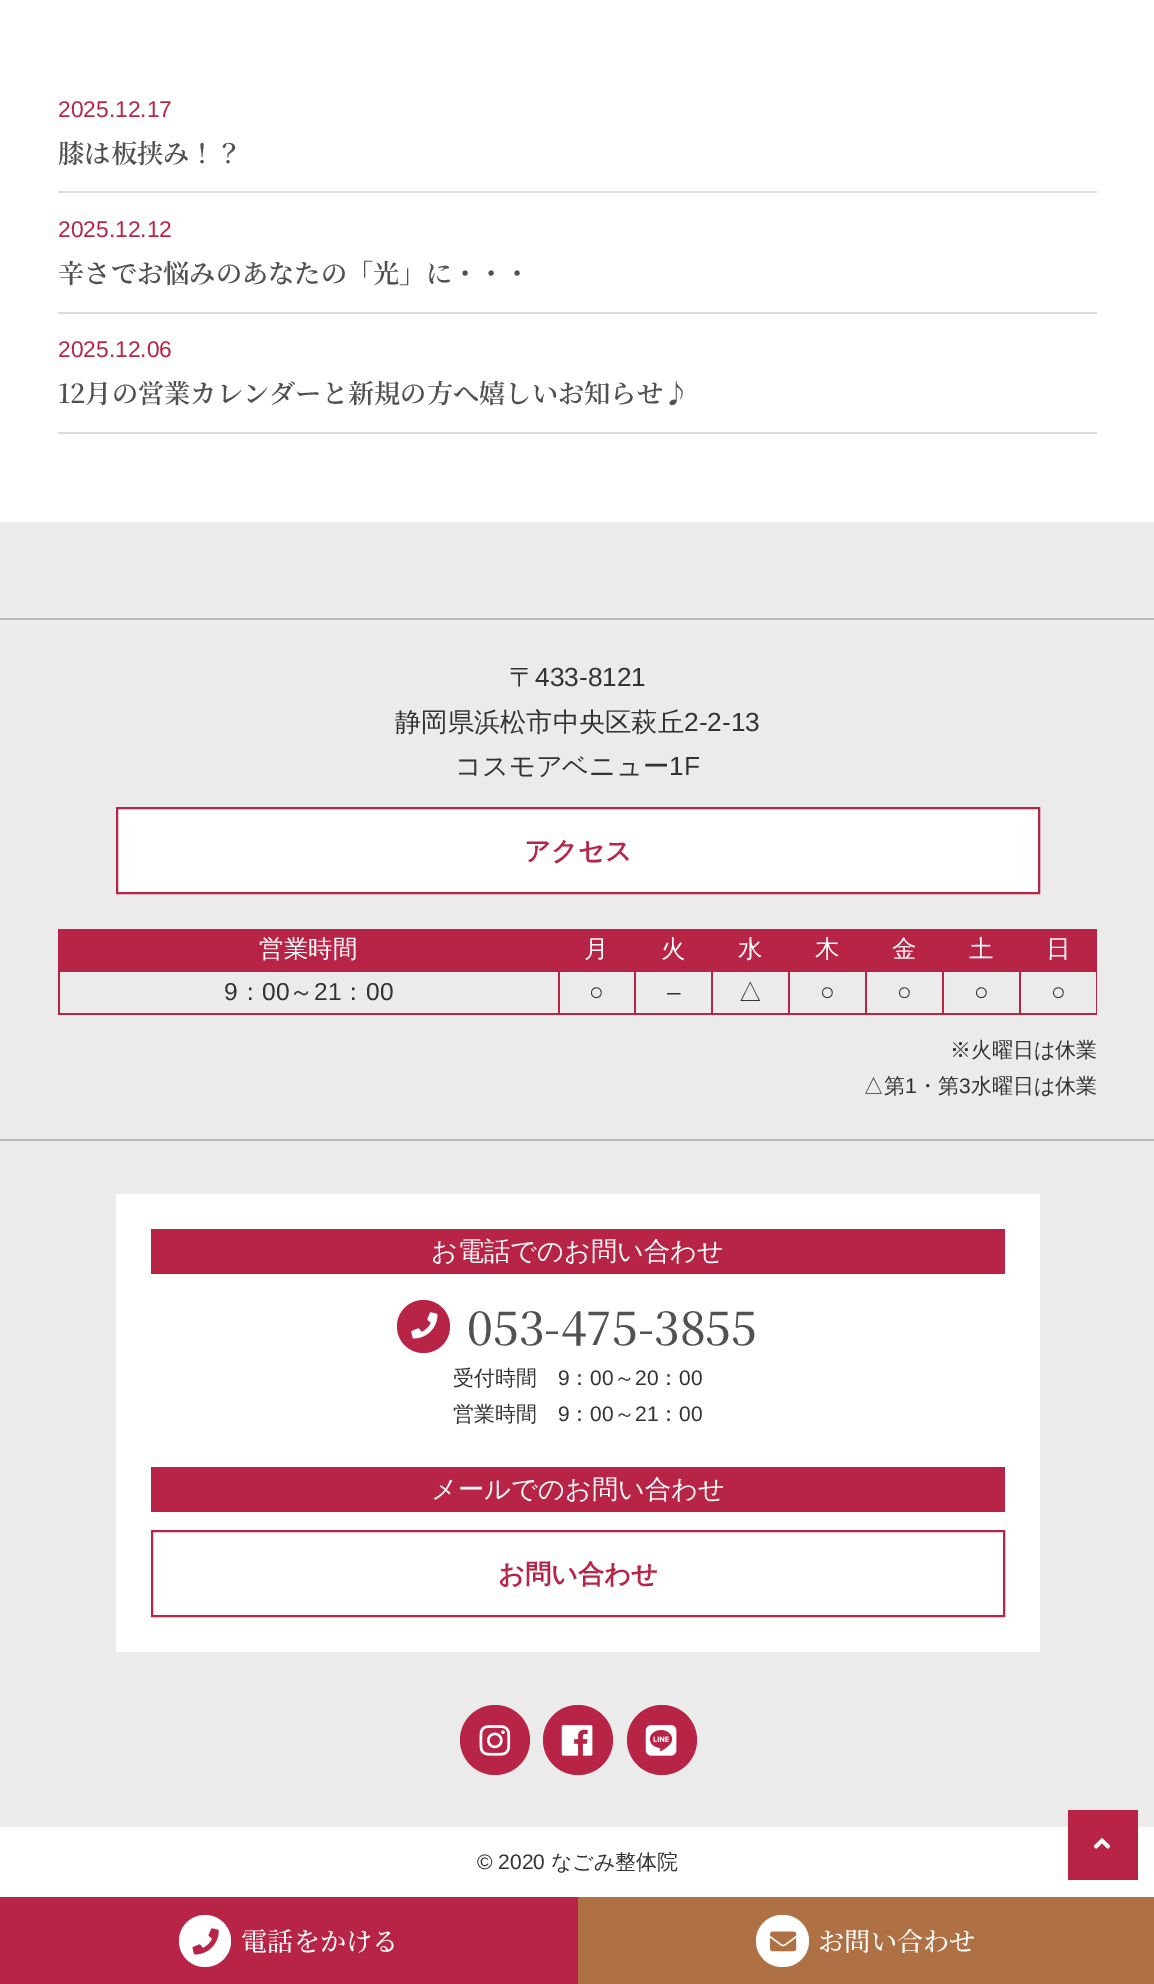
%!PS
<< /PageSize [1154 1984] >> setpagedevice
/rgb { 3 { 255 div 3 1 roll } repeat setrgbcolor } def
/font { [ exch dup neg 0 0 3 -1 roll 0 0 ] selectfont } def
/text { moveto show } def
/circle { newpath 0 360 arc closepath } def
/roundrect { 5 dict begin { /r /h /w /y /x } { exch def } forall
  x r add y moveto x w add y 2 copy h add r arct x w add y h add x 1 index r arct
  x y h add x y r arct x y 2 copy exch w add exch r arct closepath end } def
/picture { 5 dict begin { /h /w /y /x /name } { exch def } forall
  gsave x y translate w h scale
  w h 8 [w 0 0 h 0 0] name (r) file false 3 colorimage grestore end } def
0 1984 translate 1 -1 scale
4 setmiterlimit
255 255 255 rgb
0 0 1154 1984 rectfill
221 221 221 rgb
58 191 1039 2 rectfill
58 312 1039 2 rectfill
58 432 1039 2 rectfill
235 235 235 rgb
0 522 1154 1305 rectfill
187 187 187 rgb
0 618 1154 2 rectfill
255 255 255 rgb
117 808 moveto 922 0 rlineto 0 85 rlineto -922 0 rlineto closepath gsave fill grestore
183 36 69 rgb
2 setlinewidth
stroke
60 929 1037 41 rectfill
58 1013 1039 2 rectfill
58 970 2 45 rectfill
58 970 1039 2 rectfill
58 929 2 42 rectfill
558 970 2 45 rectfill
634 970 2 45 rectfill
711 970 2 45 rectfill
788 970 2 45 rectfill
865 970 2 45 rectfill
942 970 2 45 rectfill
1019 970 2 45 rectfill
1096 970 1 45 rectfill
187 187 187 rgb
0 1139 1154 2 rectfill
255 255 255 rgb
116 1194 924 458 rectfill
183 36 69 rgb
151 1229 854 45 rectfill
423.5 1326.5 26.5 circle fill
(img_01.rgb) 411 1312 27 27 picture
151 1467 854 45 rectfill
152 1531 852 85 rectstroke
495 1740 35 circle fill
(img_02.rgb) 479 1725 32 31 picture
578 1740 35 circle fill
(img_03.rgb) 561 1725 32 31 picture
662 1740 35 circle fill
(img_04.rgb) 645 1725 32 31 picture
1068 1810 70 70 rectfill
(img_05.rgb) 1093 1838 18 11 picture
0 1897 578 87 rectfill
255 255 255 rgb
205 1941 26 circle fill
(img_06.rgb) 192 1928 27 27 picture
175 113 67 rgb
578 1897 576 87 rectfill
255 255 255 rgb
756 1915 53 52 26 roundrect fill
(img_07.rgb) 770 1931 27 21 picture
/LiberationSans-Regular 22.75 font
183 36 69 rgb
(2025.12.17) 58 117 text
/NotoSerifJP-SemiBold 26.25 font
81 81 81 rgb
(膝は板挟み！？) 58 163 text
/LiberationSans-Regular 22.75 font
183 36 69 rgb
(2025.12.12) 58 237 text
/NotoSerifJP-SemiBold 26.25 font
81 81 81 rgb
(辛さでお悩みのあなたの「光」に・・・) 58 283 text
/LiberationSans-Regular 22.75 font
183 36 69 rgb
(2025.12.06) 58 357 text
/NotoSerifJP-SemiBold 26.25 font
81 81 81 rgb
(12月の営業カレンダーと新規の方へ嬉しいお知らせ♪) 58 403 text
/WenQuanYiZenHei-Medium 26.25 font
51 51 51 rgb
(〒) 509 686 text
/LiberationSans-Regular 26.25 font
(433-8121) 535 686 text
/WenQuanYiZenHei-Medium 26.25 font
(静岡県浜松市中央区萩丘) 395 731 text
/LiberationSans-Regular 26.25 font
(2-2-13) 684 731 text
/WenQuanYiZenHei-Medium 26.25 font
(コスモアベニュー) 455 775 text
/LiberationSans-Regular 26.25 font
(1F) 669 775 text
/WenQuanYiZenHei-Bold 26.25 font
183 36 69 rgb
(アクセス) 524 860 text
/WenQuanYiZenHei-Medium 24.5 font
255 255 255 rgb
(営業時間) 259 957 text
(月) 584 957 text
(火) 661 957 text
(水) 738 957 text
(木) 815 957 text
(金) 892 957 text
(土) 969 957 text
(日) 1046 957 text
/LiberationSans-Regular 24.5 font
51 51 51 rgb
(9) 224 1000 text
/WenQuanYiZenHei-Medium 24.5 font
(：) 238 1000 text
/LiberationSans-Regular 24.5 font
(00) 262 1000 text
/WenQuanYiZenHei-Medium 24.5 font
(～) 289 1000 text
/LiberationSans-Regular 24.5 font
(21) 314 1000 text
/WenQuanYiZenHei-Medium 24.5 font
(：) 341 1000 text
/LiberationSans-Regular 24.5 font
(00) 366 1000 text
(○) 589 1000 text
(–) 667 1000 text
/WenQuanYiZenHei-Medium 24.5 font
(△) 738 1000 text
/LiberationSans-Regular 24.5 font
(○) 820 1000 text
(○) 897 1000 text
(○) 974 1000 text
(○) 1051 1000 text
/WenQuanYiZenHei-Medium 21 font
(※火曜日は休業) 950 1057 text
(△第) 863 1093 text
/LiberationSans-Regular 21 font
(1) 905 1093 text
/WenQuanYiZenHei-Medium 21 font
(・第) 917 1093 text
/LiberationSans-Regular 21 font
(3) 959 1093 text
/WenQuanYiZenHei-Medium 21 font
(水曜日は休業) 971 1093 text
/WenQuanYiZenHei-Medium 26.25 font
255 255 255 rgb
(お電話でのお問い合わせ) 431 1260 text
/NotoSerifJP-Medium 45.5 font
81 81 81 rgb
(053-475-3855) 467 1345 text
/WenQuanYiZenHei-Medium 21 font
51 51 51 rgb
(受付時間) 453 1385 text
/LiberationSans-Regular 21 font
(9) 558 1385 text
/WenQuanYiZenHei-Medium 21 font
(：) 569 1385 text
/LiberationSans-Regular 21 font
(00) 590 1385 text
/WenQuanYiZenHei-Medium 21 font
(～) 614 1385 text
/LiberationSans-Regular 21 font
(20) 635 1385 text
/WenQuanYiZenHei-Medium 21 font
(：) 658 1385 text
/LiberationSans-Regular 21 font
(00) 679 1385 text
/WenQuanYiZenHei-Medium 21 font
(営業時間) 453 1421 text
/LiberationSans-Regular 21 font
(9) 558 1421 text
/WenQuanYiZenHei-Medium 21 font
(：) 569 1421 text
/LiberationSans-Regular 21 font
(00) 590 1421 text
/WenQuanYiZenHei-Medium 21 font
(～) 614 1421 text
/LiberationSans-Regular 21 font
(21) 635 1421 text
/WenQuanYiZenHei-Medium 21 font
(：) 658 1421 text
/LiberationSans-Regular 21 font
(00) 679 1421 text
/WenQuanYiZenHei-Medium 26.25 font
255 255 255 rgb
(メールでのお問い合わせ) 431 1498 text
/WenQuanYiZenHei-Bold 26.25 font
183 36 69 rgb
(お問い合わせ) 498 1583 text
/LiberationSans-Regular 21 font
51 51 51 rgb
(© 2020) 477 1869 text
/WenQuanYiZenHei-Medium 21 font
(なごみ整体院) 551 1869 text
/NotoSerifJP-Medium 26.25 font
255 255 255 rgb
(電話をかける) 241 1951 text
(お問い合わせ) 818 1951 text
showpage
